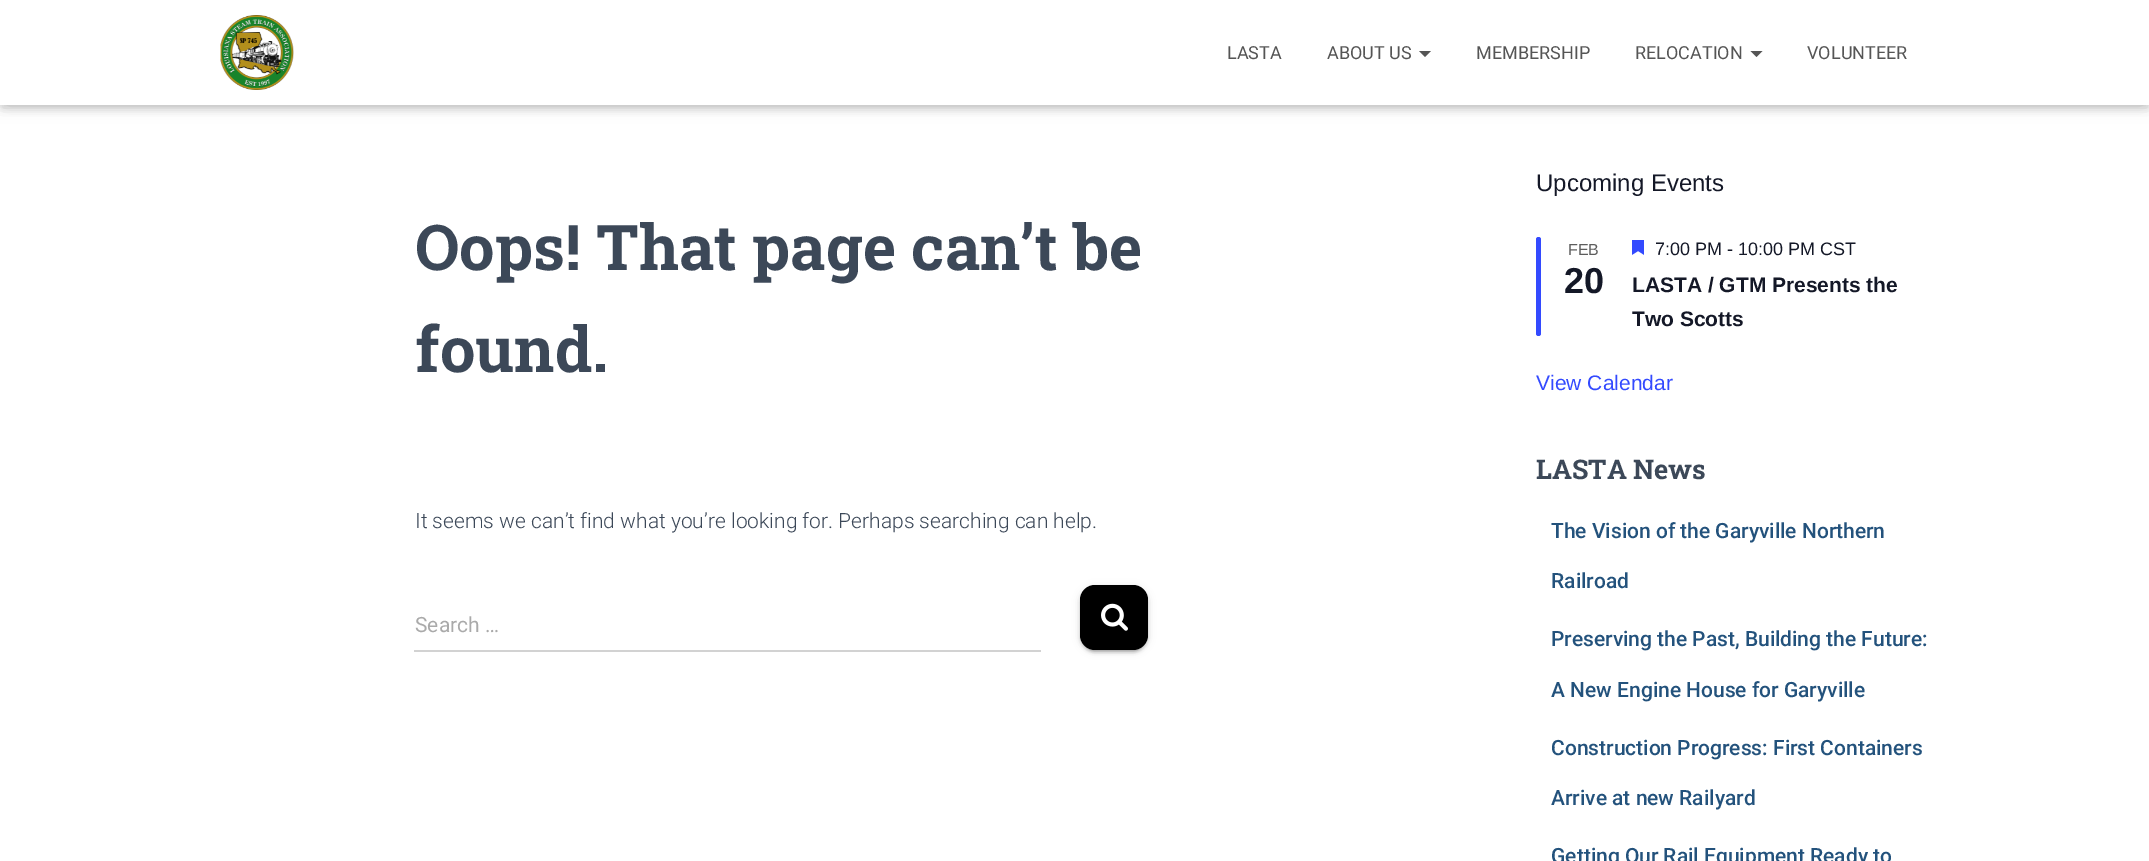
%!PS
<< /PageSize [2149 861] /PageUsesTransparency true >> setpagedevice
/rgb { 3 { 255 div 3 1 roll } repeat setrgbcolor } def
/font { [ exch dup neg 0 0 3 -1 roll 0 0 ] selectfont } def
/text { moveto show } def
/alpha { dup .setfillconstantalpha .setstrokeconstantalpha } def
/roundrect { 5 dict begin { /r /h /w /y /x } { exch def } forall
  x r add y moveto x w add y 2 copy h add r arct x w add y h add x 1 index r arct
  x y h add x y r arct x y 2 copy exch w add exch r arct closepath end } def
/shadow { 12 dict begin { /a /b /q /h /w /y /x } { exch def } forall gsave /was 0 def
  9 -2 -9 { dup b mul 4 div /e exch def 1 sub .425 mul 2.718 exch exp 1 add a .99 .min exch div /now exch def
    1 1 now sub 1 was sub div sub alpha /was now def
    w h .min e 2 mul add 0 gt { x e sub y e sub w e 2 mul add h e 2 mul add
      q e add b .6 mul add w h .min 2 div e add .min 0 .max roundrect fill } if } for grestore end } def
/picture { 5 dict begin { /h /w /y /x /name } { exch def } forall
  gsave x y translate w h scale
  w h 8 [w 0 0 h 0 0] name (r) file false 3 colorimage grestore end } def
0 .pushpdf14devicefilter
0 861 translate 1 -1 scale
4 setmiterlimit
255 255 255 rgb
0 0 2149 861 rectfill
0 0 0 rgb
3 9 2144 99 0 4 0.1 shadow
0 2 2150 105 0 7.5 0.12 shadow
9 11 2132 87 0 7.5 0.42 shadow
255 255 255 rgb
0 0 2149 105 rectfill
(img_01.rgb) 220 15 74 75 picture
85 85 85 rgb
1419 51 moveto 12 0 rlineto -6 6 rlineto closepath fill
1750.5 51 moveto 12 0 rlineto -6 6 rlineto closepath fill
210 210 210 rgb
414 650 627 2 rectfill
0 0 0 rgb
1080 587 68 64 15 4 0.12 shadow
1083 593 62 58 12 1 0.2 shadow
1080 588 68 65 15 1.5 0.14 shadow
1080 585 68 65 15 roundrect fill
(img_02.rgb) 1101 603 27 28 picture
51 74 255 rgb
1536 237 5 99 2.5 roundrect fill
(img_03.rgb) 1632 240 12 15 picture
/Roboto-Regular 18 font
85 85 85 rgb
(LASTA) 1227 59 text
(ABOUT US) 1327 59 text
(MEMBERSHIP) 1476 59 text
(RELOCATION) 1635 59 text
(VOLUNTEER) 1807 59 text
/RobotoSlab-Bold 63 font
60 72 88 rgb
(Oops! That page can’t be) 415 270 text
(found.) 415 372 text
/Roboto-Light 21 font
(It seems we can’t find what you’re looking for. Perhaps searching can help.) 415 528 text
/Roboto-Regular 21 font
170 170 170 rgb
(Search …) 415 632 text
/LiberationSans-Regular 24 font
20 24 39 rgb
(Upcoming Events) 1536 191 text
/LiberationSans-Regular 16 font
93 93 93 rgb
(FEB) 1568 255 text
/LiberationSans-Bold 36 font
20 24 39 rgb
(20) 1564 293 text
/LiberationSans-Regular 18 font
(7:00 PM - 10:00 PM CST) 1655 255 text
/LiberationSans-Bold 21 font
(LASTA / GTM Presents the) 1632 292 text
(Two Scotts) 1632 326 text
/LiberationSans-Regular 21 font
51 74 255 rgb
(View Calendar) 1536 390 text
/RobotoSlab-Bold 27 font
60 72 88 rgb
(LASTA News) 1536 479 text
/Roboto-Medium 21 font
35 82 124 rgb
(The Vision of the Garyville Northern) 1551 538 text
(Railroad) 1551 588 text
(Preserving the Past, Building the Future:) 1551 646 text
(A New Engine House for Garyville) 1551 697 text
(Construction Progress: First Containers) 1551 755 text
(Arrive at new Railyard) 1551 805 text
(Getting Our Rail Equipment Ready to) 1551 863 text
.poppdf14devicefilter showpage
